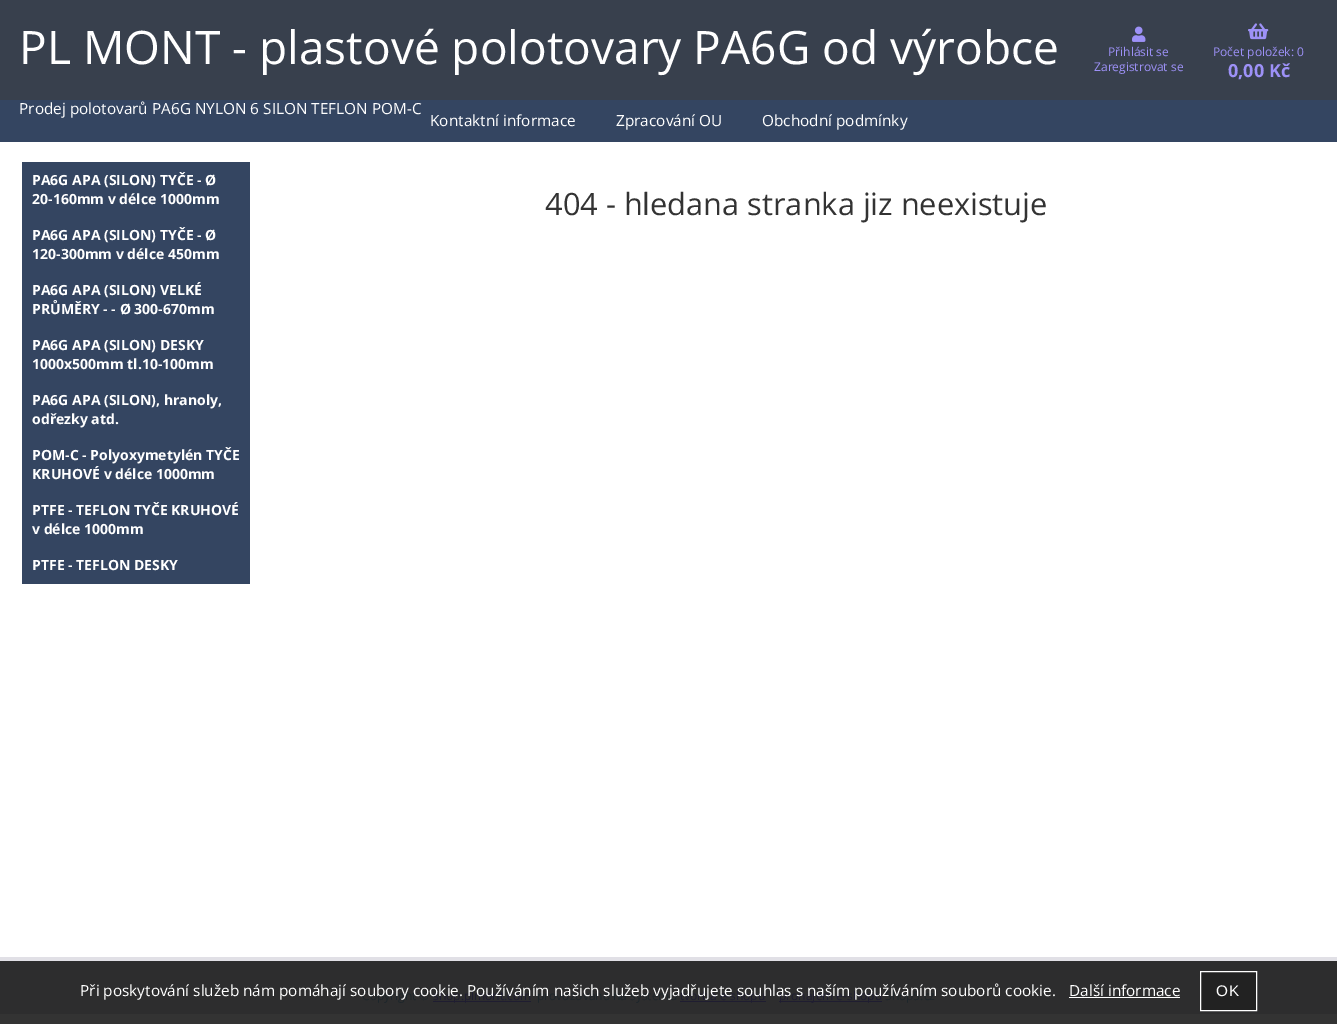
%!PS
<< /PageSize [1337 1024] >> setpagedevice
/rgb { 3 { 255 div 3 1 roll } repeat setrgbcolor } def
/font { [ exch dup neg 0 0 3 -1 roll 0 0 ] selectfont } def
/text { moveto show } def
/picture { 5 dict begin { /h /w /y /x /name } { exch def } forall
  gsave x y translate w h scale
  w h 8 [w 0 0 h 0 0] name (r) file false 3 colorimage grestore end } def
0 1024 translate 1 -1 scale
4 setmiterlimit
255 255 255 rgb
0 0 1337 1024 rectfill
51 51 51 rgb
0 1014 1337 10 rectfill
56 64 77 rgb
0 0 1337 100 rectfill
(img_01.rgb) 1132 26 14 16 picture
(img_02.rgb) 1248 23 21 17 picture
52 69 97 rgb
0 100 1337 42 rectfill
22 162 228 422 rectfill
225 224 230 rgb
0 957 1337 4 rectfill
45 45 46 rgb
0 961 1337 53 rectfill
31 29 49 rgb
433 1001 98 1 rectfill
680 1001 86 1 rectfill
779 1001 103 1 rectfill
255 255 255 rgb
1069 997 111 1 rectfill
34 34 34 rgb
1200.5 971.5 moveto 56 0 rlineto 0 39 rlineto -56 0 rlineto closepath gsave fill grestore
255 255 255 rgb
stroke
/OpenSans-Regular 46.1 font
(PL MONT - plastové polotovary PA6G od výrobce) 19 64 text
/OpenSans-Regular 12 font
157 145 247 rgb
(Přihlásit se) 1108 56 text
(Zaregistrovat se) 1094 71 text
(Počet položek: 0) 1213 56 text
/OpenSans-Bold 18 font
(0,00 Kč) 1228 77 text
/OpenSans-Regular 15.35 font
255 255 255 rgb
(Prodej polotovarů PA6G NYLON 6 SILON TEFLON POM-C) 19 114 text
(Kontaktní informace) 430 126 text
(Zpracování OU) 616 126 text
(Obchodní podmínky) 762 126 text
/OpenSans-Bold 14 font
(PA6G APA \(SILON\) TYČE - Ø) 32 185 text
(20-160mm v délce 1000mm) 32 204 text
(PA6G APA \(SILON\) TYČE - Ø) 32 240 text
(120-300mm v délce 450mm) 32 259 text
(PA6G APA \(SILON\) VELKÉ) 32 295 text
(PRŮMĚRY - - Ø 300-670mm) 32 314 text
(PA6G APA \(SILON\) DESKY) 32 350 text
(1000x500mm tl.10-100mm) 32 369 text
(PA6G APA \(SILON\), hranoly,) 32 405 text
(odřezky atd.) 32 424 text
(POM-C - Polyoxymetylén TYČE) 32 460 text
(KRUHOVÉ v délce 1000mm) 32 479 text
(PTFE - TEFLON TYČE KRUHOVÉ) 32 515 text
(v délce 1000mm) 32 534 text
(PTFE - TEFLON DESKY) 32 570 text
/OpenSans-Regular 30.75 font
51 51 51 rgb
(404 - hledana stranka jiz neexistuje) 545 215 text
/OpenSans-Regular 12 font
29 38 43 rgb
(Copyright ©) 362 1000 text
31 29 49 rgb
(shop.plmont.com) 433 1000 text
29 38 43 rgb
(provozováno na systému) 537 1000 text
31 29 49 rgb
(tvorba e-shopu) 680 1000 text
(pronájem e-shopu) 779 1000 text
29 38 43 rgb
(Shop5.cz) 885 1000 text
/OpenSans-Regular 15.35 font
255 255 255 rgb
(Při poskytování služeb nám pomáhají soubory cookie. Používáním našich služeb vyjadřujete souhlas s naším používáním souborů cookie.) 80 996 text
(Další informace) 1069 996 text
/LiberationSans-Regular 15.35 font
1216 996 moveto 1 0 (OK) ashow
showpage
